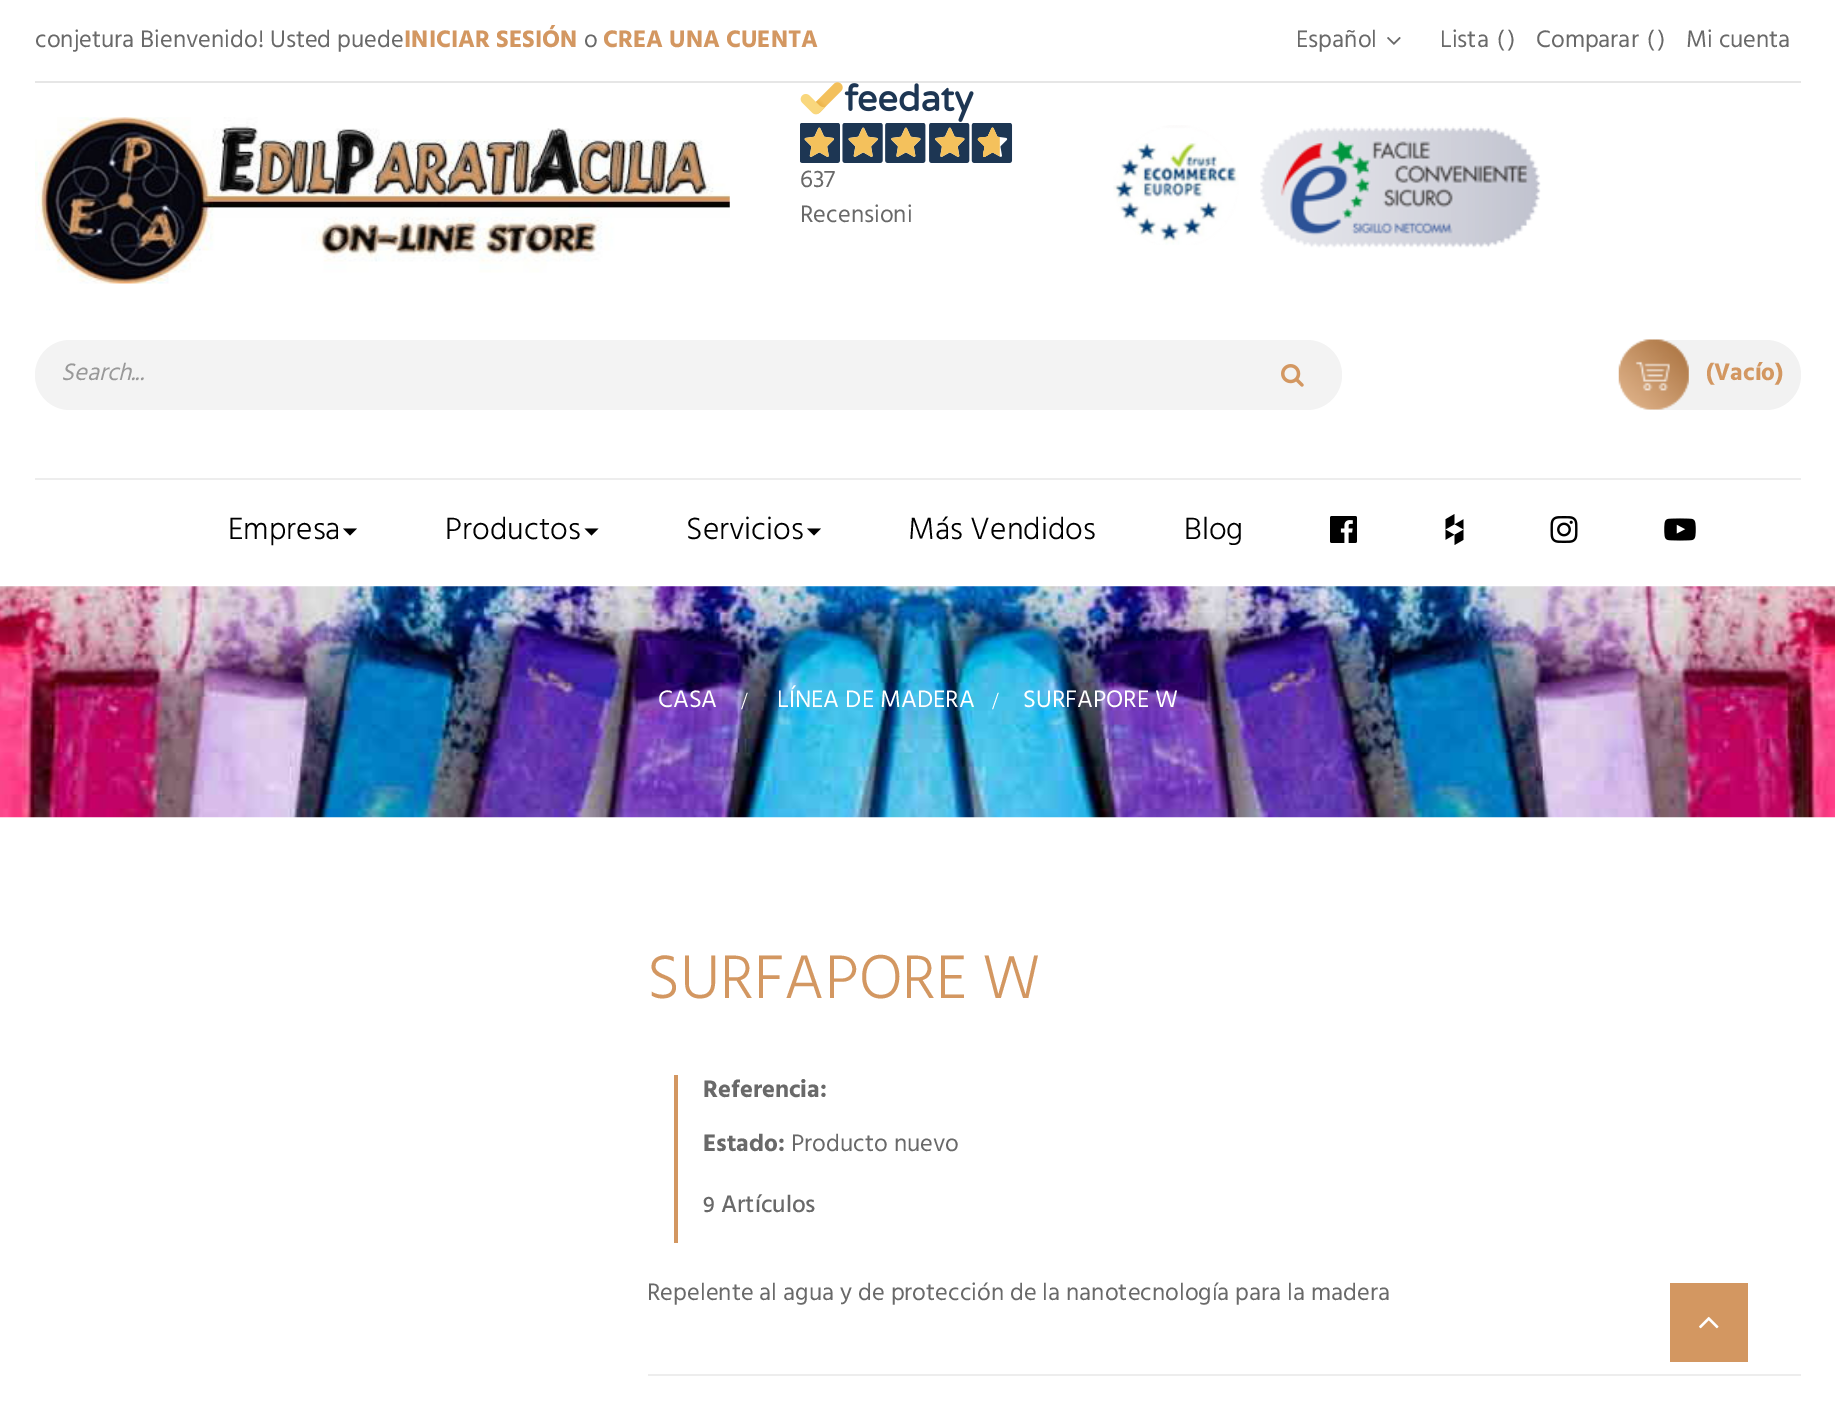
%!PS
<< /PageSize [1835 1405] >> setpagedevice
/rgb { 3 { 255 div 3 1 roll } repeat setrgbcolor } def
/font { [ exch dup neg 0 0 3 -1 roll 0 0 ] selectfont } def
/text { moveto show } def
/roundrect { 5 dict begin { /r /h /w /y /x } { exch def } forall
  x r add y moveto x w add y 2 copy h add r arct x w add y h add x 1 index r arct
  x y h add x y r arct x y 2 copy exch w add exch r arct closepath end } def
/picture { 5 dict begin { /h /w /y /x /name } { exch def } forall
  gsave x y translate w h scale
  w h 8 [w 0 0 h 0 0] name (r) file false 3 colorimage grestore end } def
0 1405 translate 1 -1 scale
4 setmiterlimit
255 255 255 rgb
0 0 1835 1405 rectfill
230 230 230 rgb
35 81 1766 2 rectfill
(img_01.rgb) 1387 37 14 8 picture
(img_02.rgb) 35 117 695 167 picture
(img_03.rgb) 800 82 174 40 picture
(img_04.rgb) 800 123 213 40 picture
(img_05.rgb) 1113 125 126 120 picture
(img_06.rgb) 1260 126 281 122 picture
243 243 243 rgb
35 340 1307 70 35 roundrect fill
(img_07.rgb) 1281 364 23 23 picture
242 242 242 rgb
1619 340 182 70 35 roundrect fill
(img_08.rgb) 1618 339 71 71 picture
237 237 237 rgb
35 478 1766 2 rectfill
0 0 0 rgb
343 528.5 moveto 14 0 rlineto -7 7 rlineto closepath fill
584.5 528.5 moveto 14 0 rlineto -7 7 rlineto closepath fill
807 528.5 moveto 14 0 rlineto -7 7 rlineto closepath fill
(img_09.rgb) 1330 516 27 27 picture
(img_10.rgb) 1445 514 19 31 picture
(img_11.rgb) 1550 516 28 27 picture
(img_12.rgb) 1664 518 32 23 picture
(img_13.rgb) 0 586 1835 232 picture
211 151 97 rgb
674 1075 4 168 rectfill
237 237 237 rgb
648 1374 1153 2 rectfill
211 151 97 rgb
1670 1283 78 79 rectfill
(img_14.rgb) 1699 1316 20 13 picture
/Hind-Regular 24.5 font
105 105 105 rgb
(conjetura Bienvenido! Usted puede) 35 47 text
/Hind-Bold 24.5 font
211 151 97 rgb
(INICIAR SESIÓN) 404 47 text
/Hind-Regular 24.5 font
105 105 105 rgb
(o) 584 47 text
/Hind-Bold 24.5 font
211 151 97 rgb
(CREA UNA CUENTA) 603 47 text
/Hind-Regular 24.5 font
105 105 105 rgb
(Lista) 1440 47 text
/Hind-Regular 23 font
(\() 1497 46 text
(\)) 1508 46 text
/Hind-Regular 24.5 font
(Comparar) 1536 47 text
/Hind-Regular 23 font
(\() 1647 46 text
(\)) 1658 46 text
/Hind-Regular 24.5 font
(Mi cuenta) 1686 47 text
(Español) 1296 47 text
(637) 800 187 text
(Recensioni) 800 222 text
/Hind-Italic 24.5 font
153 153 153 rgb
(Search...) 61 380 text
/Hind-Bold 24.5 font
211 151 97 rgb
(\(Vacío\)) 1706 380 text
/Hind-Light 31.5 font
0 0 0 rgb
(Empresa) 228 539 text
(Productos) 445 539 text
(Servicios) 686 539 text
(Más Vendidos) 908 539 text
(Blog) 1184 539 text
/Hind-Regular 24.5 font
255 255 255 rgb
(CASA) 658 707 text
/LiberationSerif-Regular 24.5 font
(/) 741 709 text
/Hind-Regular 24.5 font
(LÍNEA DE MADERA) 777 707 text
/LiberationSerif-Regular 24.5 font
(/) 992 709 text
/Hind-Regular 24.5 font
(SURFAPORE W) 1023 707 text
/Hind-Light 63 font
211 151 97 rgb
(SURFAPORE W) 647 998 text
/Hind-Bold 24.5 font
105 105 105 rgb
(Referencia:) 703 1097 text
(Estado:) 703 1151 text
/Hind-Regular 24.5 font
(Producto nuevo) 791 1151 text
/Hind-Medium 23 font
(9) 703 1212 text
/Hind-Medium 24.5 font
(Artículos) 721 1212 text
/Hind-Regular 24.5 font
(Repelente al agua y de protección de la nanotecnología para la madera) 647 1300 text
showpage
